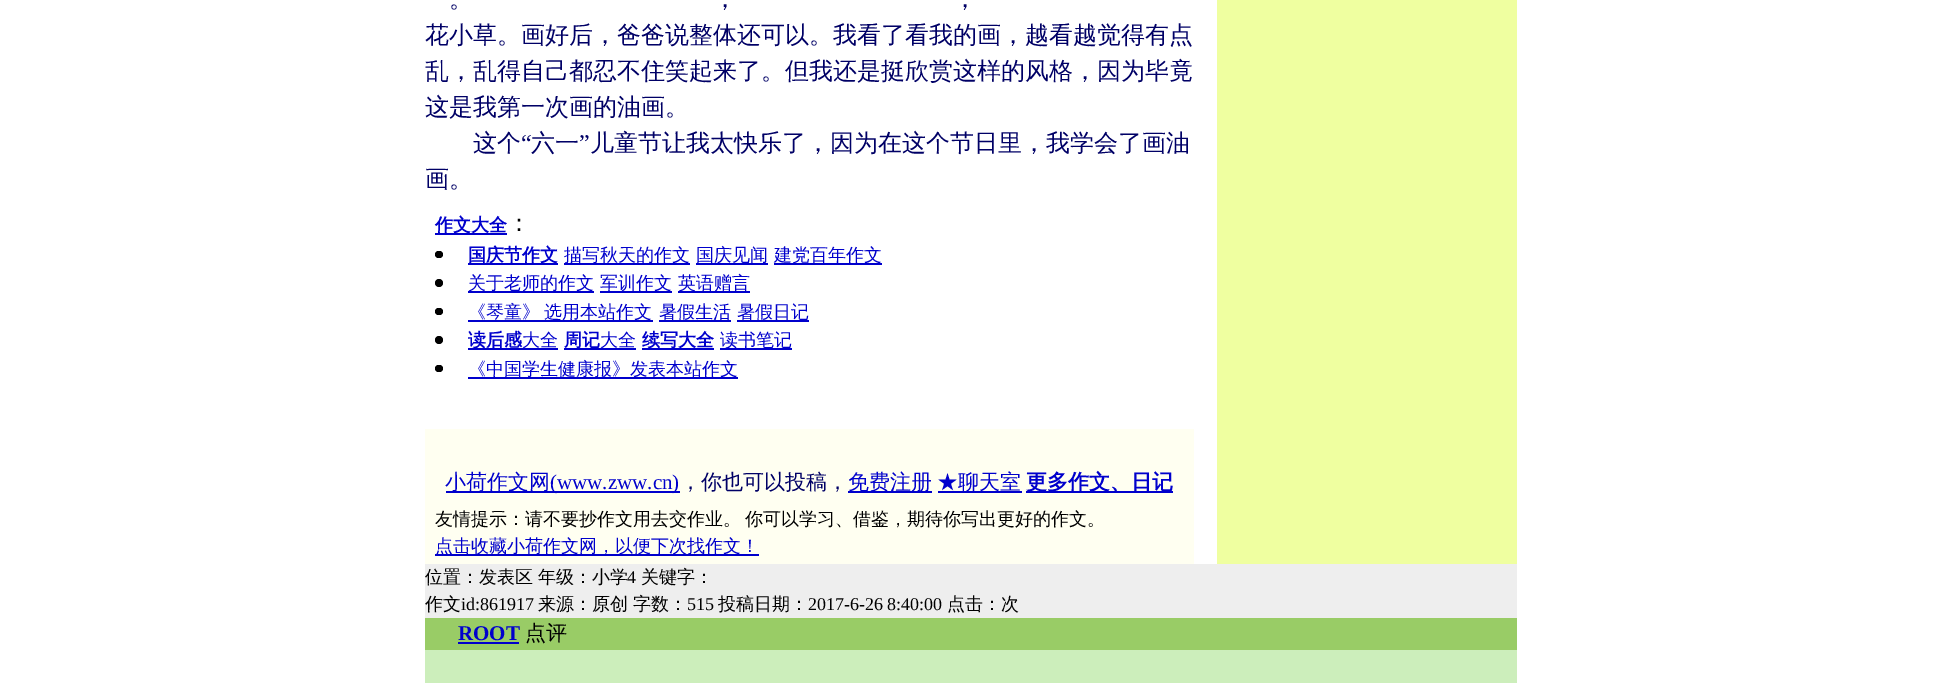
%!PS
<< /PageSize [1941 683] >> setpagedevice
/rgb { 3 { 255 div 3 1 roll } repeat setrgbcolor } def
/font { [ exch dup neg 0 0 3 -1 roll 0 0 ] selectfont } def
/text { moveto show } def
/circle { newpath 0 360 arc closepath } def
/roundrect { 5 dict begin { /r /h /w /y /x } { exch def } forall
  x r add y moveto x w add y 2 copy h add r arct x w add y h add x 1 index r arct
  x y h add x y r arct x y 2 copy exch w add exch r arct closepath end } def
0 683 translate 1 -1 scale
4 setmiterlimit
255 255 255 rgb
0 0 1941 683 rectfill
0 0 204 rgb
435 233 72 2 rectfill
0 0 0 rgb
435 251 8 7 3.5 roundrect fill
0 0 204 rgb
468 263 90 2 rectfill
564 263 126 2 rectfill
696 263 72 2 rectfill
774 263 108 2 rectfill
0 0 0 rgb
439 283 4 circle fill
0 0 204 rgb
468 291 126 2 rectfill
600 291 72 2 rectfill
678 291 72 2 rectfill
0 0 0 rgb
435 308 8 7 3.5 roundrect fill
0 0 204 rgb
468 320 185 2 rectfill
659 320 72 2 rectfill
737 320 72 2 rectfill
0 0 0 rgb
439 340 4 circle fill
0 0 204 rgb
468 348 90 2 rectfill
564 348 72 2 rectfill
642 348 72 2 rectfill
720 348 72 2 rectfill
0 0 0 rgb
435 365 8 7 3.5 roundrect fill
0 0 204 rgb
468 377 270 2 rectfill
255 255 241 rgb
425 429 769 135 rectfill
0 0 204 rgb
446 491 234 2 rectfill
848 491 84 2 rectfill
938 491 84 2 rectfill
1026 491 147 2 rectfill
435 554 324 2 rectfill
239 255 160 rgb
1217 0 300 564 rectfill
238 238 238 rgb
425 564 1092 54 rectfill
153 204 102 rgb
425 618 1092 32 rectfill
0 0 204 rgb
458 642 61 2 rectfill
204 238 187 rgb
425 650 1092 33 rectfill
/WenQuanYiZenHei-Medium 24 font
0 0 102 rgb
(。) 449 7 text
(，) 713 7 text
(，) 953 7 text
(花小草。画好后，爸爸说整体还可以。我看了看我的画，越看越觉得有点) 425 43 text
(乱，乱得自己都忍不住笑起来了。但我还是挺欣赏这样的风格，因为毕竟) 425 79 text
(这是我第一次画的油画。) 425 115 text
(这个) 473 151 text
/LiberationSerif-Regular 24 font
(“) 521 151 text
/WenQuanYiZenHei-Medium 24 font
(六一) 531 151 text
/LiberationSerif-Regular 24 font
(”) 579 151 text
/WenQuanYiZenHei-Medium 24 font
(儿童节让我太快乐了，因为在这个节日里，我学会了画油) 590 151 text
(画。) 425 187 text
/WenQuanYiZenHei-Bold 18 font
0 0 204 rgb
(作文大全) 435 231 text
/WenQuanYiZenHei-Medium 24 font
0 0 0 rgb
(：) 507 231 text
/WenQuanYiZenHei-Bold 18 font
0 0 204 rgb
(国庆节作文) 468 261 text
/WenQuanYiZenHei-Medium 18 font
(描写秋天的作文) 564 261 text
(国庆见闻) 696 261 text
(建党百年作文) 774 261 text
(关于老师的作文) 468 289 text
(军训作文) 600 289 text
(英语赠言) 678 289 text
468 318 moveto -1 0 32 (《琴童》 选用本站作文) widthshow
(暑假生活) 659 318 text
(暑假日记) 737 318 text
/WenQuanYiZenHei-Bold 18 font
(读后感) 468 346 text
/WenQuanYiZenHei-Medium 18 font
(大全) 522 346 text
/WenQuanYiZenHei-Bold 18 font
(周记) 564 346 text
/WenQuanYiZenHei-Medium 18 font
(大全) 600 346 text
/WenQuanYiZenHei-Bold 18 font
(续写大全) 642 346 text
/WenQuanYiZenHei-Medium 18 font
(读书笔记) 720 346 text
(《中国学生健康报》发表本站作文) 468 375 text
/WenQuanYiZenHei-Medium 21 font
(小荷作文网) 445 489 text
/LiberationSerif-Regular 21 font
(\(www.zww.cn\)) 550 489 text
/WenQuanYiZenHei-Medium 21 font
0 0 102 rgb
(，你也可以投稿，) 680 489 text
0 0 204 rgb
(免费注册) 848 489 text
(★聊天室) 937 489 text
/WenQuanYiZenHei-Bold 21 font
(更多作文、日记) 1026 489 text
/WenQuanYiZenHei-Medium 18 font
0 0 0 rgb
435 525 moveto -1 0 32 (友情提示：请不要抄作文用去交作业。 你可以学习、借鉴，期待你写出更好的作文。) widthshow
0 0 204 rgb
(点击收藏小荷作文网，以便下次找作文！) 435 552 text
0 0 0 rgb
(位置：发表区 年级：小学) 425 583 text
/LiberationSerif-Regular 18 font
(4) 627 583 text
/WenQuanYiZenHei-Medium 18 font
(关键字：) 641 583 text
(作文) 425 610 text
/LiberationSerif-Regular 18 font
(id:861917) 461 610 text
/WenQuanYiZenHei-Medium 18 font
(来源：原创) 538 610 text
(字数：) 633 610 text
/LiberationSerif-Regular 18 font
(515) 687 610 text
/WenQuanYiZenHei-Medium 18 font
(投稿日期：) 718 610 text
/LiberationSerif-Regular 18 font
(2017-6-26 8:40:00) 808 610 text
/WenQuanYiZenHei-Medium 18 font
(点击：次) 947 610 text
/LiberationSerif-Bold 21 font
0 0 204 rgb
(ROOT) 458 640 text
/WenQuanYiZenHei-Medium 21 font
0 0 0 rgb
(点评) 525 640 text
showpage
